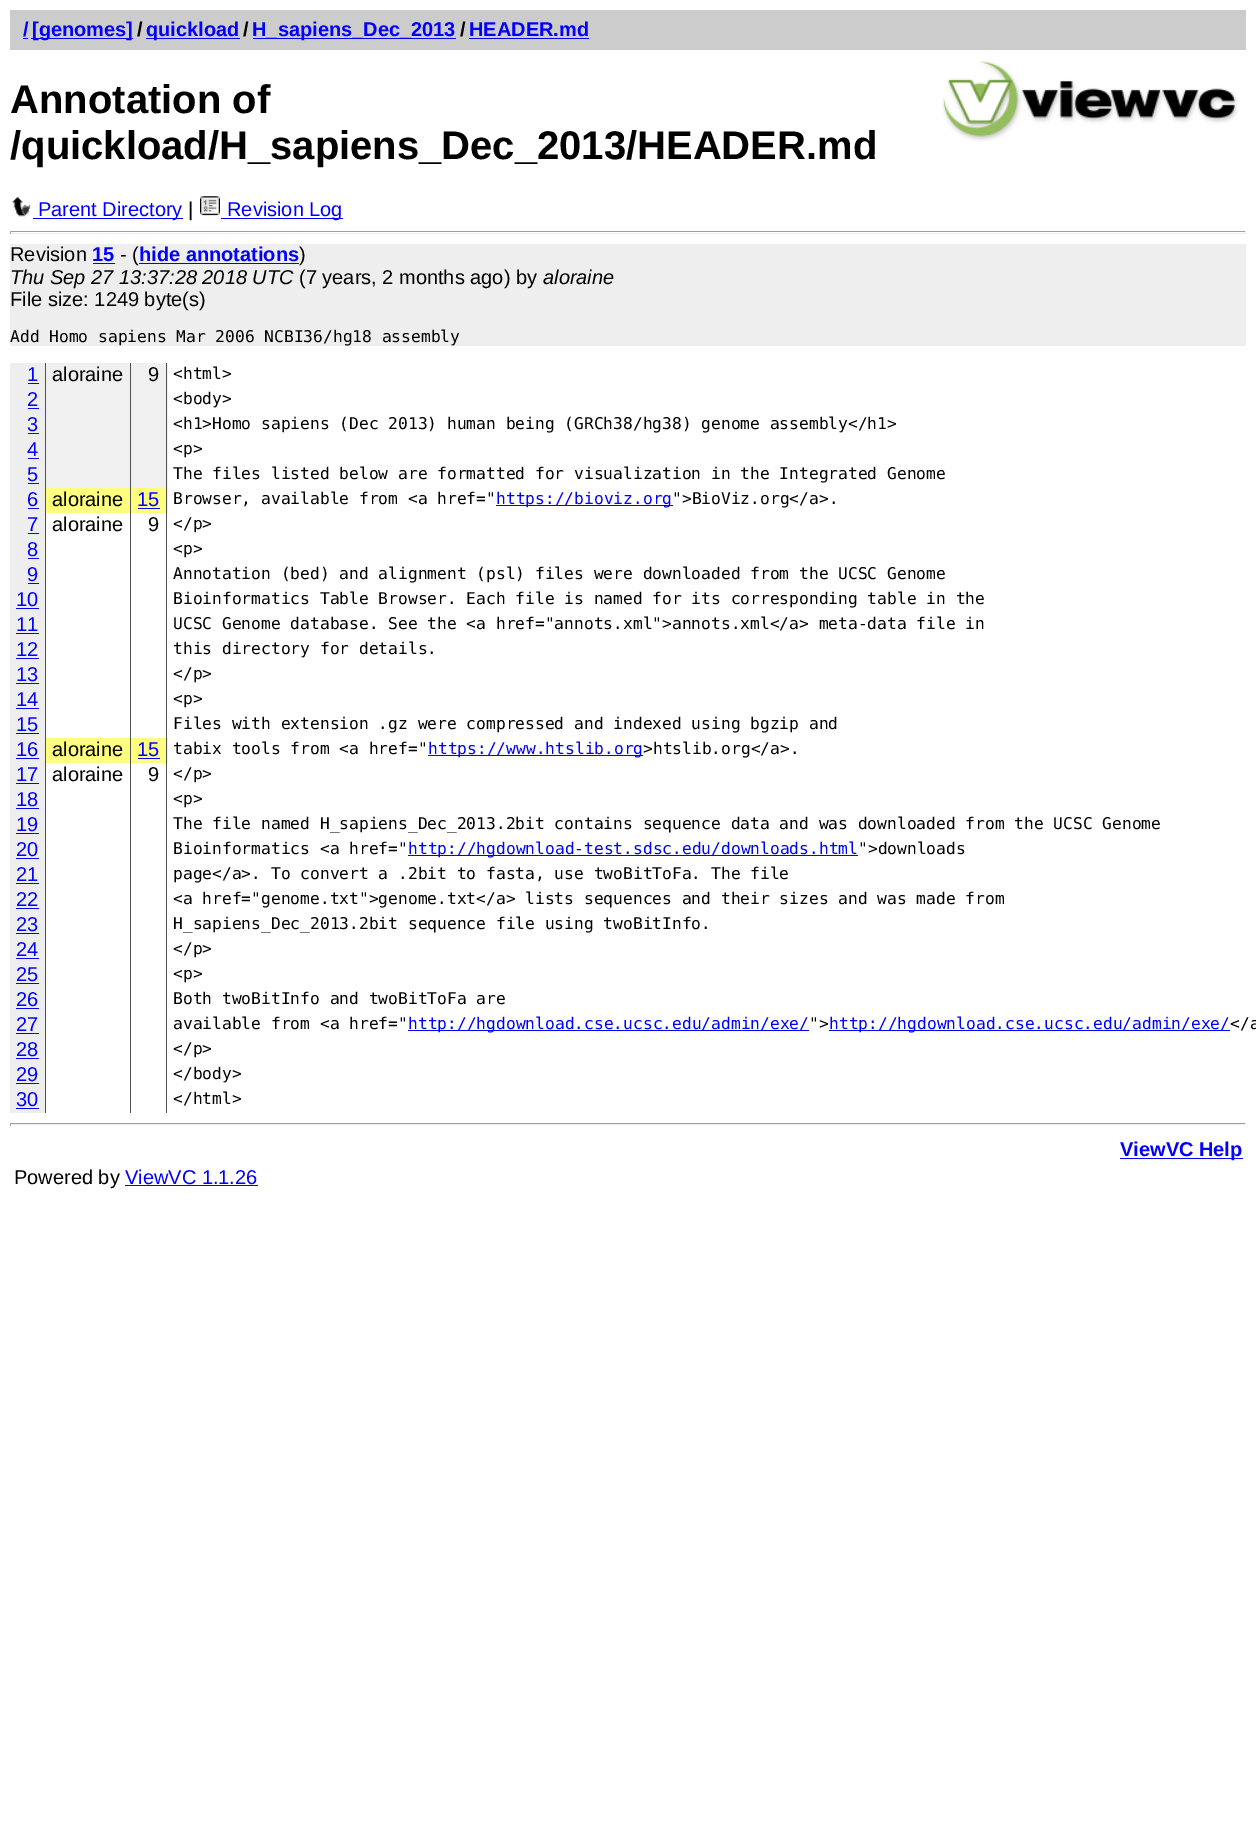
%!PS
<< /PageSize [1256 1826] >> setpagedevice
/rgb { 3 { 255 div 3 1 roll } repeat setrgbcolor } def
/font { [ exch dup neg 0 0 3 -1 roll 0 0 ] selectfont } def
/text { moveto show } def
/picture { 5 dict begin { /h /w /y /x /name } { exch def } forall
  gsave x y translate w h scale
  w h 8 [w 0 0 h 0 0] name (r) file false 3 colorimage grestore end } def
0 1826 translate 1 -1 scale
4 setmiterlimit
255 255 255 rgb
0 0 1256 1826 rectfill
204 204 204 rgb
10 10 1236 40 rectfill
0 0 255 rgb
23 38 5 1 rectfill
31 38 102 1 rectfill
146 38 94 1 rectfill
253 38 203 1 rectfill
469 38 120 1 rectfill
(img_01.rgb) 942 61 297 81 picture
(img_02.rgb) 12 197 19 20 picture
33 218 150 1 rectfill
(img_03.rgb) 200 196 20 20 picture
221 218 122 1 rectfill
159 159 159 rgb
10 231 1236 1 rectfill
238 238 238 rgb
1245 231 1 3 rectfill
10 233 1236 1 rectfill
159 159 159 rgb
10 231 1 3 rectfill
238 238 238 rgb
10 244 1236 102 rectfill
0 0 255 rgb
93 263 22 1 rectfill
139 263 160 1 rectfill
240 240 240 rgb
46 363 122 125 rectfill
238 238 238 rgb
10 363 35 750 rectfill
80 80 80 rgb
45 363 1 750 rectfill
0 0 255 rgb
28 383 11 1 rectfill
80 80 80 rgb
130 363 1 125 rectfill
166 363 1 125 rectfill
0 0 255 rgb
28 408 11 1 rectfill
28 433 11 1 rectfill
28 458 11 1 rectfill
28 483 11 1 rectfill
255 255 127 rgb
46 488 122 25 rectfill
0 0 255 rgb
28 508 11 1 rectfill
80 80 80 rgb
130 488 1 250 rectfill
166 488 1 250 rectfill
0 0 255 rgb
138 508 22 1 rectfill
496 505 177 1 rectfill
28 533 11 1 rectfill
28 558 11 1 rectfill
28 583 11 1 rectfill
16 608 23 1 rectfill
16 633 23 1 rectfill
16 658 23 1 rectfill
16 683 23 1 rectfill
16 708 23 1 rectfill
16 733 23 1 rectfill
255 255 127 rgb
46 738 122 25 rectfill
0 0 255 rgb
16 758 23 1 rectfill
80 80 80 rgb
130 738 1 375 rectfill
166 738 1 375 rectfill
0 0 255 rgb
138 758 22 1 rectfill
428 755 215 1 rectfill
16 783 23 1 rectfill
16 808 23 1 rectfill
16 833 23 1 rectfill
16 858 23 1 rectfill
408 855 450 1 rectfill
16 883 23 1 rectfill
16 908 23 1 rectfill
16 933 23 1 rectfill
16 958 23 1 rectfill
16 983 23 1 rectfill
16 1008 23 1 rectfill
16 1033 23 1 rectfill
408 1030 401 1 rectfill
829 1030 401 1 rectfill
16 1058 23 1 rectfill
16 1083 23 1 rectfill
16 1108 23 1 rectfill
159 159 159 rgb
10 1123 1236 1 rectfill
238 238 238 rgb
1245 1123 1 3 rectfill
10 1124 1236 1 rectfill
159 159 159 rgb
10 1123 1 3 rectfill
0 0 255 rgb
1120 1158 123 1 rectfill
125 1185 133 1 rectfill
/LiberationSans-Bold 20 font
(/) 23 36 text
([genomes]) 32 36 text
0 0 0 rgb
(/) 137 36 text
0 0 255 rgb
(quickload) 146 36 text
0 0 0 rgb
(/) 243 36 text
0 0 255 rgb
(H_sapiens_Dec_2013) 252 36 text
0 0 0 rgb
(/) 460 36 text
0 0 255 rgb
(HEADER.md) 469 36 text
/LiberationSans-Bold 40 font
0 0 0 rgb
(Annotation of) 10 113 text
(/quickload/H_sapiens_Dec_2013/HEADER.md) 10 159 text
/LiberationSans-Regular 20 font
0 0 255 rgb
(Parent Directory) 38 216 text
0 0 0 rgb
(|) 188 216 text
0 0 255 rgb
(Revision Log) 227 216 text
0 0 0 rgb
(Revision) 10 261 text
/LiberationSans-Bold 20 font
0 0 255 rgb
(15) 92 261 text
/LiberationSans-Regular 20 font
0 0 0 rgb
(- \() 120 261 text
/LiberationSans-Bold 20 font
0 0 255 rgb
(hide annotations) 139 261 text
/LiberationSans-Regular 20 font
0 0 0 rgb
(\)) 299 261 text
/LiberationSans-Italic 20 font
(Thu Sep 27 13:37:28 2018 UTC) 10 284 text
/LiberationSans-Regular 20 font
(\(7 years, 2 months ago\) by) 299 284 text
/LiberationSans-Italic 20 font
(aloraine) 543 284 text
/LiberationSans-Regular 20 font
(File size: 1249 byte\(s\)) 10 306 text
/DejaVuSansMono-Regular 16.25 font
(Add Homo sapiens Mar 2006 NCBI36/hg18 assembly) 10 342 text
/LiberationSans-Regular 20 font
0 0 255 rgb
(1) 27 381 text
0 0 0 rgb
(aloraine) 52 381 text
(9) 148 381 text
/DejaVuSansMono-Regular 16.25 font
(<html>) 173 379 text
/LiberationSans-Regular 20 font
0 0 255 rgb
(2) 27 406 text
/DejaVuSansMono-Regular 16.25 font
0 0 0 rgb
(<body>) 173 404 text
/LiberationSans-Regular 20 font
0 0 255 rgb
(3) 27 431 text
/DejaVuSansMono-Regular 16.25 font
0 0 0 rgb
(<h1>Homo sapiens \(Dec 2013\) human being \(GRCh38/hg38\) genome assembly</h1>) 173 429 text
/LiberationSans-Regular 20 font
0 0 255 rgb
(4) 27 456 text
/DejaVuSansMono-Regular 16.25 font
0 0 0 rgb
(<p>) 173 454 text
/LiberationSans-Regular 20 font
0 0 255 rgb
(5) 27 481 text
/DejaVuSansMono-Regular 16.25 font
0 0 0 rgb
(The files listed below are formatted for visualization in the Integrated Genome) 173 479 text
/LiberationSans-Regular 20 font
0 0 255 rgb
(6) 27 506 text
0 0 0 rgb
(aloraine) 52 506 text
0 0 255 rgb
(15) 137 506 text
/DejaVuSansMono-Regular 16.25 font
0 0 0 rgb
(Browser, available from <a href=") 173 504 text
0 0 255 rgb
(https://bioviz.org) 496 504 text
0 0 0 rgb
(">BioViz.org</a>.) 672 504 text
/LiberationSans-Regular 20 font
0 0 255 rgb
(7) 27 531 text
0 0 0 rgb
(aloraine) 52 531 text
(9) 148 531 text
/DejaVuSansMono-Regular 16.25 font
(</p>) 173 529 text
/LiberationSans-Regular 20 font
0 0 255 rgb
(8) 27 556 text
/DejaVuSansMono-Regular 16.25 font
0 0 0 rgb
(<p>) 173 554 text
/LiberationSans-Regular 20 font
0 0 255 rgb
(9) 27 581 text
/DejaVuSansMono-Regular 16.25 font
0 0 0 rgb
(Annotation \(bed\) and alignment \(psl\) files were downloaded from the UCSC Genome) 173 579 text
/LiberationSans-Regular 20 font
0 0 255 rgb
(10) 16 606 text
/DejaVuSansMono-Regular 16.25 font
0 0 0 rgb
(Bioinformatics Table Browser. Each file is named for its corresponding table in the) 173 604 text
/LiberationSans-Regular 20 font
0 0 255 rgb
(11) 16 631 text
/DejaVuSansMono-Regular 16.25 font
0 0 0 rgb
(UCSC Genome database. See the <a href="annots.xml">annots.xml</a> meta-data file in) 173 629 text
/LiberationSans-Regular 20 font
0 0 255 rgb
(12) 16 656 text
/DejaVuSansMono-Regular 16.25 font
0 0 0 rgb
(this directory for details.) 173 654 text
/LiberationSans-Regular 20 font
0 0 255 rgb
(13) 16 681 text
/DejaVuSansMono-Regular 16.25 font
0 0 0 rgb
(</p>) 173 679 text
/LiberationSans-Regular 20 font
0 0 255 rgb
(14) 16 706 text
/DejaVuSansMono-Regular 16.25 font
0 0 0 rgb
(<p>) 173 704 text
/LiberationSans-Regular 20 font
0 0 255 rgb
(15) 16 731 text
/DejaVuSansMono-Regular 16.25 font
0 0 0 rgb
(Files with extension .gz were compressed and indexed using bgzip and) 173 729 text
/LiberationSans-Regular 20 font
0 0 255 rgb
(16) 16 756 text
0 0 0 rgb
(aloraine) 52 756 text
0 0 255 rgb
(15) 137 756 text
/DejaVuSansMono-Regular 16.25 font
0 0 0 rgb
(tabix tools from <a href=") 173 754 text
0 0 255 rgb
(https://www.htslib.org) 428 754 text
0 0 0 rgb
(>htslib.org</a>.) 643 754 text
/LiberationSans-Regular 20 font
0 0 255 rgb
(17) 16 781 text
0 0 0 rgb
(aloraine) 52 781 text
(9) 148 781 text
/DejaVuSansMono-Regular 16.25 font
(</p>) 173 779 text
/LiberationSans-Regular 20 font
0 0 255 rgb
(18) 16 806 text
/DejaVuSansMono-Regular 16.25 font
0 0 0 rgb
(<p>) 173 804 text
/LiberationSans-Regular 20 font
0 0 255 rgb
(19) 16 831 text
/DejaVuSansMono-Regular 16.25 font
0 0 0 rgb
(The file named H_sapiens_Dec_2013.2bit contains sequence data and was downloaded from the UCSC Genome) 173 829 text
/LiberationSans-Regular 20 font
0 0 255 rgb
(20) 16 856 text
/DejaVuSansMono-Regular 16.25 font
0 0 0 rgb
(Bioinformatics <a href=") 173 854 text
0 0 255 rgb
(http://hgdownload-test.sdsc.edu/downloads.html) 408 854 text
0 0 0 rgb
(">downloads) 858 854 text
/LiberationSans-Regular 20 font
0 0 255 rgb
(21) 16 881 text
/DejaVuSansMono-Regular 16.25 font
0 0 0 rgb
(page</a>. To convert a .2bit to fasta, use twoBitToFa. The file) 173 879 text
/LiberationSans-Regular 20 font
0 0 255 rgb
(22) 16 906 text
/DejaVuSansMono-Regular 16.25 font
0 0 0 rgb
(<a href="genome.txt">genome.txt</a> lists sequences and their sizes and was made from) 173 904 text
/LiberationSans-Regular 20 font
0 0 255 rgb
(23) 16 931 text
/DejaVuSansMono-Regular 16.25 font
0 0 0 rgb
(H_sapiens_Dec_2013.2bit sequence file using twoBitInfo.) 173 929 text
/LiberationSans-Regular 20 font
0 0 255 rgb
(24) 16 956 text
/DejaVuSansMono-Regular 16.25 font
0 0 0 rgb
(</p>) 173 954 text
/LiberationSans-Regular 20 font
0 0 255 rgb
(25) 16 981 text
/DejaVuSansMono-Regular 16.25 font
0 0 0 rgb
(<p>) 173 979 text
/LiberationSans-Regular 20 font
0 0 255 rgb
(26) 16 1006 text
/DejaVuSansMono-Regular 16.25 font
0 0 0 rgb
(Both twoBitInfo and twoBitToFa are) 173 1004 text
/LiberationSans-Regular 20 font
0 0 255 rgb
(27) 16 1031 text
/DejaVuSansMono-Regular 16.25 font
0 0 0 rgb
(available from <a href=") 173 1029 text
0 0 255 rgb
(http://hgdownload.cse.ucsc.edu/admin/exe/) 408 1029 text
0 0 0 rgb
(">) 809 1029 text
0 0 255 rgb
(http://hgdownload.cse.ucsc.edu/admin/exe/) 829 1029 text
0 0 0 rgb
(</a) 1230 1029 text
/LiberationSans-Regular 20 font
0 0 255 rgb
(28) 16 1056 text
/DejaVuSansMono-Regular 16.25 font
0 0 0 rgb
(</p>) 173 1054 text
/LiberationSans-Regular 20 font
0 0 255 rgb
(29) 16 1081 text
/DejaVuSansMono-Regular 16.25 font
0 0 0 rgb
(</body>) 173 1079 text
/LiberationSans-Regular 20 font
0 0 255 rgb
(30) 16 1106 text
/DejaVuSansMono-Regular 16.25 font
0 0 0 rgb
(</html>) 173 1104 text
/LiberationSans-Bold 20 font
0 0 255 rgb
(ViewVC Help) 1120 1156 text
/LiberationSans-Regular 20 font
0 0 0 rgb
(Powered by) 14 1184 text
0 0 255 rgb
(ViewVC 1.1.26) 125 1184 text
showpage
